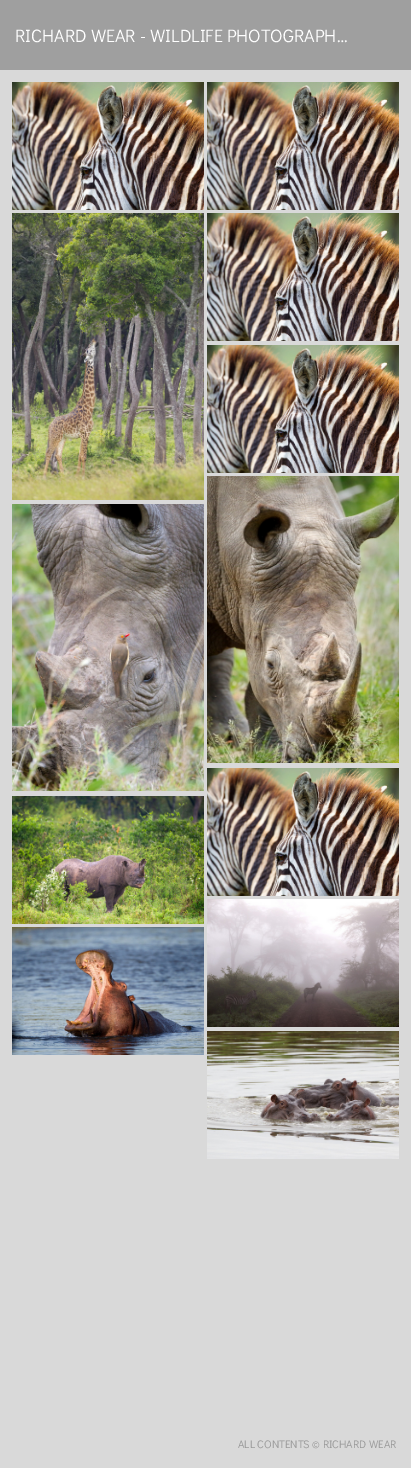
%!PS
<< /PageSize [411 1468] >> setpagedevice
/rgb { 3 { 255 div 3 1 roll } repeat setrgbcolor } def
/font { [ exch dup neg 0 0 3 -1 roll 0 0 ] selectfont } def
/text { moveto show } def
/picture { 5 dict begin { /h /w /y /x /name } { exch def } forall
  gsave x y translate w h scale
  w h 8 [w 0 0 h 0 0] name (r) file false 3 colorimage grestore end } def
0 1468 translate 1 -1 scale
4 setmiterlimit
217 217 217 rgb
0 0 411 1468 rectfill
159 159 159 rgb
0 0 411 70 rectfill
(img_01.rgb) 12 82 192 128 picture
(img_01.rgb) 207 82 192 128 picture
(img_02.rgb) 12 213 192 287 picture
(img_01.rgb) 207 213 192 128 picture
(img_01.rgb) 207 345 192 128 picture
(img_03.rgb) 12 504 192 287 picture
(img_04.rgb) 207 476 192 287 picture
(img_05.rgb) 12 796 192 128 picture
(img_01.rgb) 207 768 192 128 picture
(img_06.rgb) 12 927 192 128 picture
(img_07.rgb) 207 899 192 128 picture
(img_08.rgb) 207 1031 192 128 picture
/DidactGothic-Regular 18 font
255 255 255 rgb
(RICHARD WEAR - WILDLIFE PHOTOGRAPH…) 15 42 text
/DidactGothic-Regular 11 font
153 153 153 rgb
(ALL CONTENTS © RICHARD WEAR) 238 1448 text
showpage
